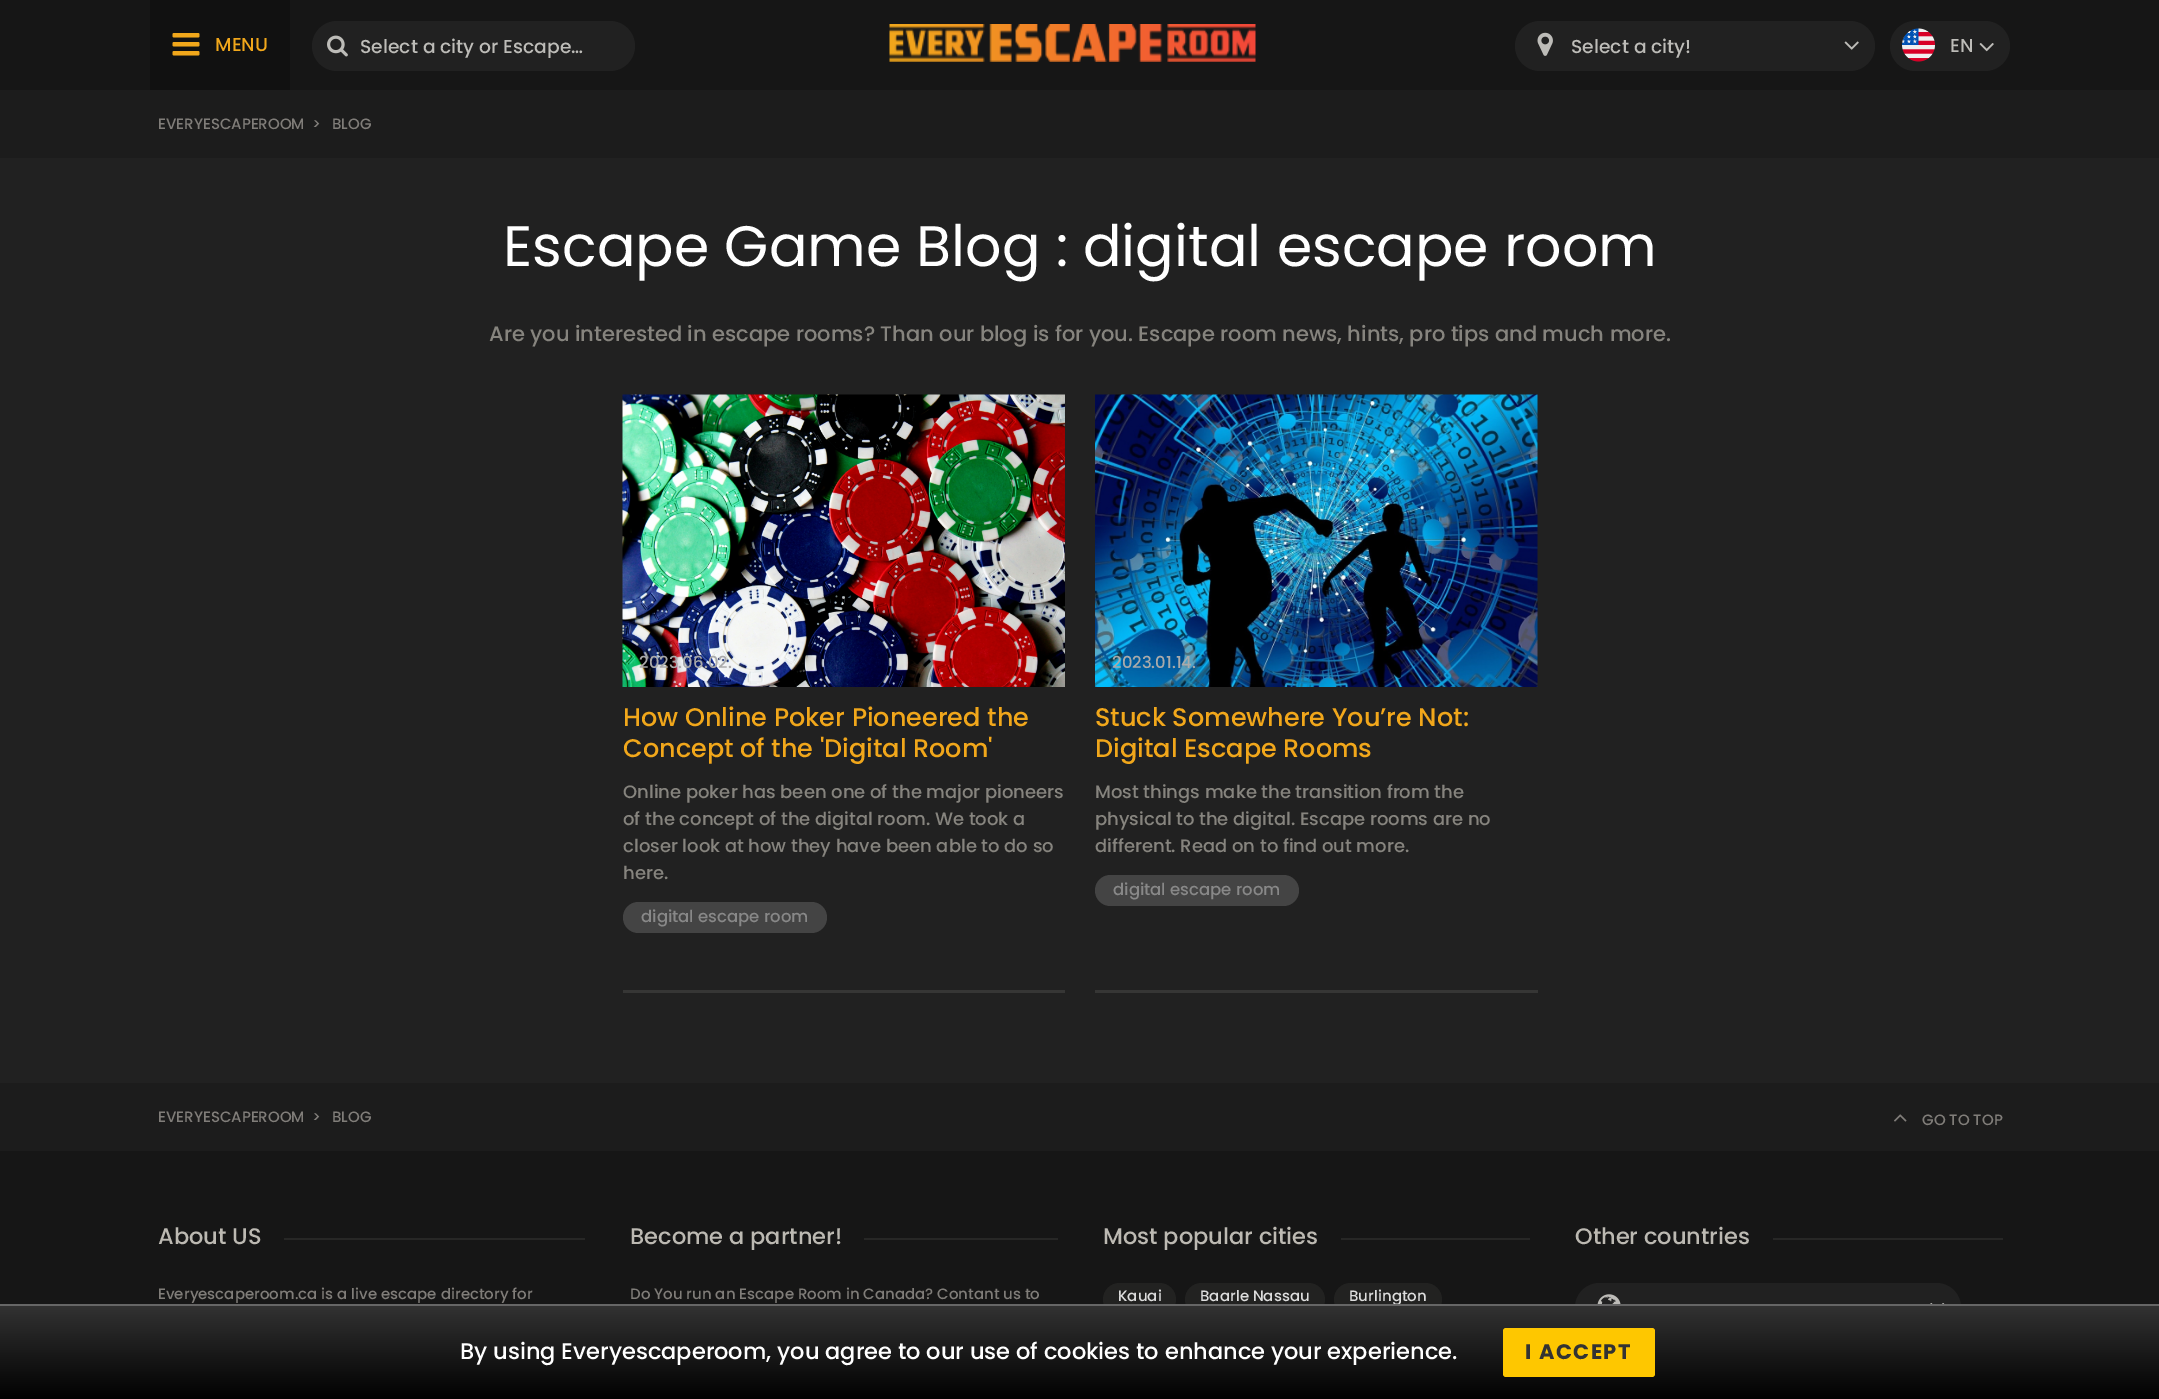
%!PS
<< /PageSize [2159 1399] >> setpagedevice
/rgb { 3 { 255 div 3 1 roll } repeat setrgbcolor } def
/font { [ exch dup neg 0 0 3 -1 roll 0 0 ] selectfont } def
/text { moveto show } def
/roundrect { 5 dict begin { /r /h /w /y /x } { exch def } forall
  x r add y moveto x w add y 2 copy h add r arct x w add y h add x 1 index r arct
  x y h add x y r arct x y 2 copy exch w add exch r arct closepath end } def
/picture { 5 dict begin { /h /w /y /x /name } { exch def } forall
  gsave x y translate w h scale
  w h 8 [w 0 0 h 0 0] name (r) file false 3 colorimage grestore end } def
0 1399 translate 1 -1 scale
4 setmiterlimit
28 28 28 rgb
0 0 2159 1399 rectfill
22 22 22 rgb
0 0 2159 90 rectfill
17 17 17 rgb
150 0 140 90 rectfill
(img_01.rgb) 172 33 28 23 picture
33 33 33 rgb
312 21 323 50 25 roundrect fill
(img_02.rgb) 327 35 21 22 picture
(img_03.rgb) 889 24 367 38 picture
1515 21 360 50 25 roundrect fill
(img_04.rgb) 1537 32 16 24 picture
(img_05.rgb) 1844 41 15 9 picture
1890 21 120 50 25 roundrect fill
(img_06.rgb) 1902 28 33 34 picture
(img_07.rgb) 1979 43 15 9 picture
0 158 2159 925 rectfill
54 54 53 rgb
623 990 442 3 rectfill
(img_08.rgb) 622 394 443 293 picture
68 68 68 rgb
623 902 204 31 15.5 roundrect fill
54 54 53 rgb
1095 990 443 3 rectfill
(img_09.rgb) 1095 394 443 293 picture
68 68 68 rgb
1095 875 204 31 15.5 roundrect fill
(img_10.rgb) 1894 1114 13 8 picture
22 22 22 rgb
0 1151 2159 153 rectfill
39 39 38 rgb
284 1238 301 2 rectfill
864 1238 194 2 rectfill
1341 1238 189 2 rectfill
34 34 33 rgb
1103 1283 73 33 16.5 roundrect fill
1185 1283 140 33 16.5 roundrect fill
1334 1283 108 33 16.5 roundrect fill
39 39 38 rgb
1773 1238 230 2 rectfill
33 33 33 rgb
1575 1283 386 49 24.5 roundrect fill
(img_11.rgb) 1597 1294 24 10 picture
(img_12.rgb) 1930 1303 15 1 picture
gsave 0 1306 moveto 2159 0 rlineto 0 93 rlineto -2159 0 rlineto closepath clip newpath
<< /ShadingType 2 /ColorSpace /DeviceRGB /Coords [1080 1305 1080 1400] /Extend [true true] /Function << /FunctionType 2 /Domain [0 1] /C0 [0.2 0.2 0.2] /C1 [0 0 0] /N 1 >> >> shfill grestore
254 199 0 rgb
1503 1328 152 49 3 roundrect fill
/Poppins-Medium 18.75 font
241 167 27 rgb
(MENU) 215 51 text
189 188 184 rgb
(Select a city or Escape…) 360 53 text
(Select a city!) 1571 53 text
(EN) 1950 52 text
/Poppins-Medium 15 font
128 125 121 rgb
(EVERYESCAPEROOM) 158 129 text
(>) 312 129 text
(BLOG) 332 129 text
/Poppins-Regular 57 font
255 255 255 rgb
(Escape Game Blog : digital escape room) 503 266 text
/Poppins-Medium 21 font
134 132 126 rgb
(Are you interested in escape rooms? Than our blog is for you. Escape room news, hints, pro tips and much more.) 489 341 text
/Poppins-Medium 16.5 font
170 170 170 rgb
(2023.06.02.) 639 668 text
/Poppins-Medium 25.5 font
241 167 27 rgb
(How Online Poker Pioneered the) 623 726 text
(Concept of the 'Digital Room') 623 757 text
/Poppins-Medium 18 font
134 132 126 rgb
(Online poker has been one of the major pioneers) 623 798 text
(of the concept of the digital room. We took a) 623 825 text
(closer look at how they have been able to do so) 623 852 text
(here.) 623 879 text
/Poppins-Medium 16.5 font
136 136 136 rgb
(digital escape room) 641 922 text
170 170 170 rgb
(2023.01.14.) 1112 668 text
/Poppins-Medium 25.5 font
241 167 27 rgb
(Stuck Somewhere You’re Not:) 1095 726 text
(Digital Escape Rooms) 1095 757 text
/Poppins-Medium 18 font
134 132 126 rgb
(Most things make the transition from the) 1095 798 text
(physical to the digital. Escape rooms are no) 1095 825 text
(different. Read on to find out more.) 1095 852 text
/Poppins-Medium 16.5 font
136 136 136 rgb
(digital escape room) 1113 895 text
/Poppins-Medium 15 font
128 125 121 rgb
(EVERYESCAPEROOM) 158 1122 text
(>) 312 1122 text
(BLOG) 332 1122 text
(GO TO TOP) 1922 1125 text
/Poppins-Medium 22.5 font
188 185 178 rgb
(About US) 158 1244 text
/Poppins-Medium 15 font
128 125 121 rgb
(Everyescaperoom.ca is a live escape directory for) 158 1299 text
/Poppins-Medium 22.5 font
188 185 178 rgb
(Become a partner!) 630 1244 text
/Poppins-Medium 15 font
128 125 121 rgb
(Do You run an Escape Room in Canada? Contant us to) 630 1299 text
/Poppins-Medium 22.5 font
188 185 178 rgb
(Most popular cities) 1103 1244 text
/Poppins-Medium 15 font
221 221 221 rgb
(Kauai) 1118 1301 text
(Baarle Nassau) 1200 1301 text
(Burlington) 1349 1301 text
/Poppins-Medium 22.5 font
188 185 178 rgb
(Other countries) 1575 1244 text
102 102 102 rgb
0 1304 2159 2 rectfill
255 255 255 rgb
(By using Everyescaperoom, you agree to our use of cookies to enhance your experience.) 460 1359 text
/Poppins-Bold 21 font
51 51 51 rgb
1525 1359 moveto 1.5 0 (I ACCEPT) ashow
showpage
